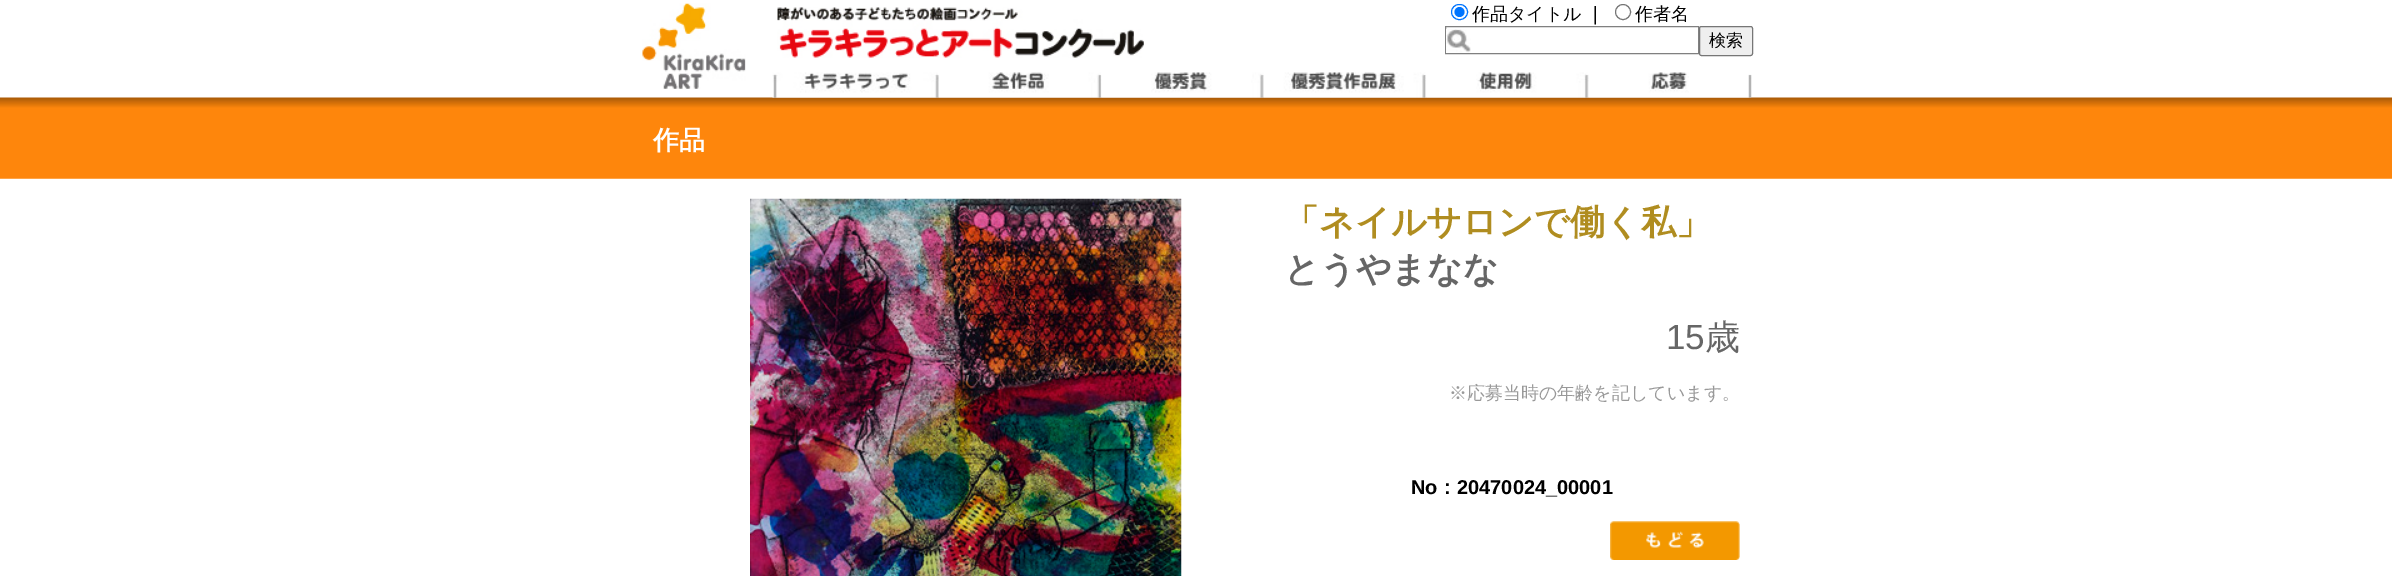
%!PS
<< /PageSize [2392 576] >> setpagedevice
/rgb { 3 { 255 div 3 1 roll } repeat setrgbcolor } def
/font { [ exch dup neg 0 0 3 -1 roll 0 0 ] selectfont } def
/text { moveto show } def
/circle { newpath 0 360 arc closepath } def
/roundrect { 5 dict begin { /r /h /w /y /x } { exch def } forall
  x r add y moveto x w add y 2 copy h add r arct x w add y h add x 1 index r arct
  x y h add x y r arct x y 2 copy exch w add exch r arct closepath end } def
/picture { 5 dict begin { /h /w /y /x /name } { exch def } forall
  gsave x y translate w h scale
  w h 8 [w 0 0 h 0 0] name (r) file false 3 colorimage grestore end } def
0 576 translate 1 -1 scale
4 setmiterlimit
255 255 255 rgb
0 0 2392 576 rectfill
(img_01.rgb) 642 3 104 86 picture
(img_02.rgb) 777 7 367 51 picture
0 117 255 rgb
1451.5 4.5 16 15 7.5 roundrect stroke
1459.5 12 5 circle fill
118 118 118 rgb
1623 12 7.5 circle stroke
128 128 128 rgb
1445.5 26.5 253 27 rectstroke
(img_03.rgb) 1446 29 25 24 picture
239 239 239 rgb
1699.5 26.5 53 29 2 roundrect gsave fill grestore
118 118 118 rgb
stroke
(img_10.rgb) 0 97 2392 82 picture
(img_04.rgb) 772 72 167 26 picture
(img_05.rgb) 938 72 164 26 picture
(img_06.rgb) 1101 72 163 26 picture
(img_07.rgb) 1263 72 164 26 picture
(img_08.rgb) 1426 72 163 26 picture
(img_09.rgb) 1588 72 164 26 picture
(img_11.rgb) 750 198 432 378 picture
(img_12.rgb) 1610 521 130 39 picture
/WenQuanYiZenHei-Medium 18 font
0 0 0 rgb
(作品タイトル) 1472 20 text
/WenQuanYiZenHei-Bold 18 font
(｜) 1586 20 text
/WenQuanYiZenHei-Medium 18 font
(作者名) 1635 20 text
/WenQuanYiZenHei-Medium 17 font
(検索) 1709 46 text
/WenQuanYiZenHei-Bold 26 font
255 255 255 rgb
(作品) 653 149 text
/WenQuanYiZenHei-Bold 35 font
176 141 32 rgb
(「ネイルサロンで働く私」) 1284 234 text
102 102 102 rgb
(とうやまなな) 1284 281 text
/LiberationSans-Regular 35 font
(15) 1666 349 text
/WenQuanYiZenHei-Medium 35 font
(歳) 1705 349 text
/WenQuanYiZenHei-Medium 18 font
153 153 153 rgb
(※応募当時の年齢を記しています。) 1449 399 text
/LiberationSans-Bold 20 font
0 0 0 rgb
(No) 1411 494 text
/WenQuanYiZenHei-Bold 20 font
(：) 1437 494 text
/LiberationSans-Bold 20 font
(20470024_00001) 1457 494 text
showpage
